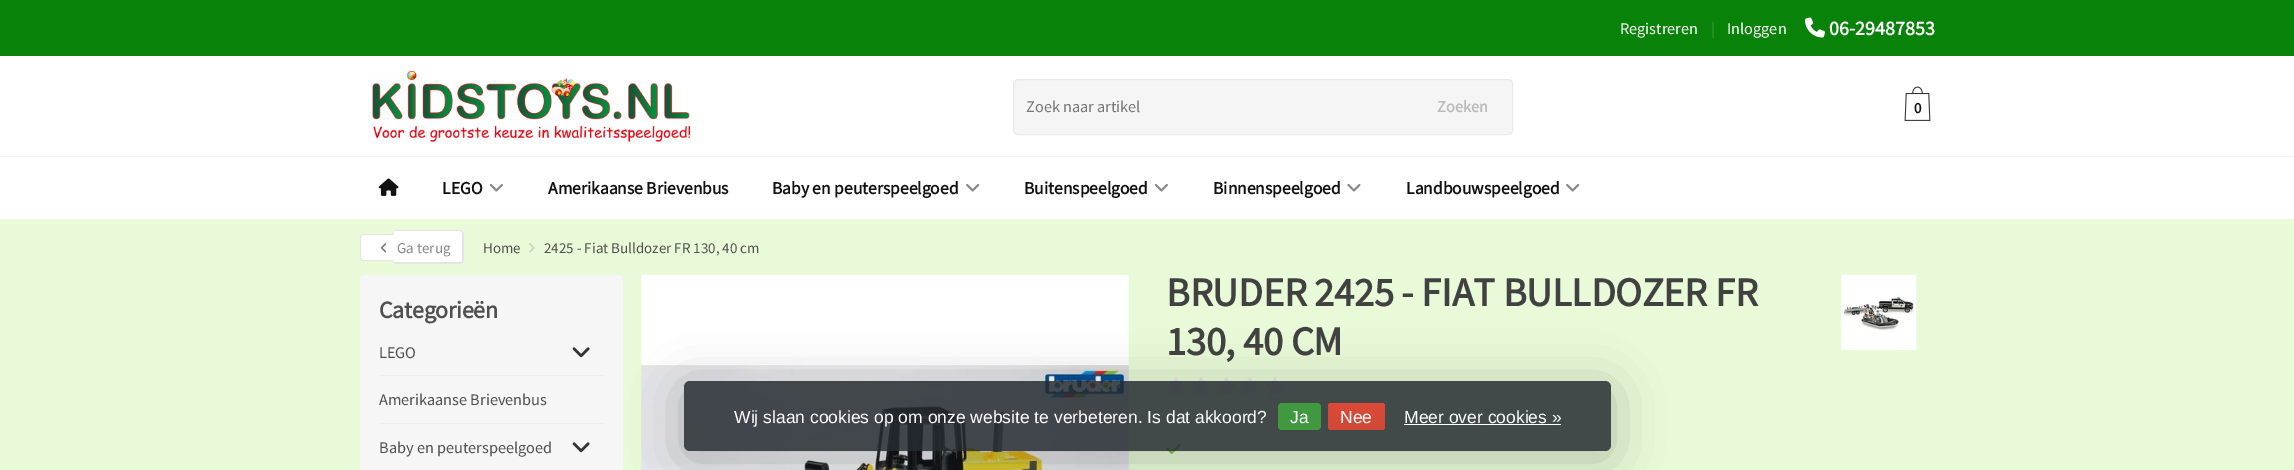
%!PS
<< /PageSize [2294 470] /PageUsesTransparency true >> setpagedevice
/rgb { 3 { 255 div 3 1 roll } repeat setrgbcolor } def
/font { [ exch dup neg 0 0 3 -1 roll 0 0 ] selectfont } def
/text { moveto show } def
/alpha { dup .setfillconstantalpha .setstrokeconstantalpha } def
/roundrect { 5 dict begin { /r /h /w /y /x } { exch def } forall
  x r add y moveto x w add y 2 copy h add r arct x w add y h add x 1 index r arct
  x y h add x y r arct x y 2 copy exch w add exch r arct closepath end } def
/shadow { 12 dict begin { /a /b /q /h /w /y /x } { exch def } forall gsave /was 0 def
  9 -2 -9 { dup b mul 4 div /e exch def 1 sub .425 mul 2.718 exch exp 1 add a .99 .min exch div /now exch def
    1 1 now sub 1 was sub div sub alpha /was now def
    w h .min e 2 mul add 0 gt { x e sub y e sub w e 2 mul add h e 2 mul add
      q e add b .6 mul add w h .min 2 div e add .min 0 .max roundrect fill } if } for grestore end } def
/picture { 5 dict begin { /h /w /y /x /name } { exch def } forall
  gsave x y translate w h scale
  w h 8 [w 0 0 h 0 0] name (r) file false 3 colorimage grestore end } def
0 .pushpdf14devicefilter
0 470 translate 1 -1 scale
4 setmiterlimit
232 250 216 rgb
0 0 2294 470 rectfill
9 130 9 rgb
0 0 2294 56 rectfill
(img_01.rgb) 1805 17 20 21 picture
255 255 255 rgb
0 56 2294 163 rectfill
(img_02.rgb) 372 70 318 72 picture
245 245 245 rgb
1013 79 500 56 5 roundrect fill
0.5 alpha
221 221 221 rgb
1013.5 79.5 499 55 4.5 roundrect stroke
1 alpha
(img_03.rgb) 1904 86 27 35 picture
(img_04.rgb) 378 178 21 18 picture
(img_05.rgb) 489 184 14 8 picture
(img_06.rgb) 966 184 14 8 picture
(img_05.rgb) 1154 184 14 8 picture
(img_07.rgb) 1347 183 14 9 picture
(img_06.rgb) 1566 184 14 8 picture
238 238 238 rgb
0 156 2294 1 rectfill
255 255 255 rgb
364 234 moveto 30 0 rlineto 0 27 rlineto -30 0 rlineto -2 0 -4 -2 -4 -4 rcurveto 0 -19 rlineto 0 -2 2 -4 4 -4 rcurveto closepath fill
229 229 229 rgb
364 234 moveto 30 0 rlineto 0 27 rlineto -30 0 rlineto -2.5 0 -4 -1.5 -4 -3.5 rcurveto 0 -20 rlineto 0 -2 1.5 -3.5 4 -3.5 rcurveto closepath 364 235 moveto 30 0 rlineto 0 25 rlineto -30 0 rlineto -1.5 0 -3 -1 -3 -2.5 rcurveto 0 -20 rlineto 0 -1.5 1.5 -2.5 3 -2.5 rcurveto closepath eofill
255 255 255 rgb
394 230 moveto 66 0 rlineto 2 0 4 2 4 4 rcurveto 0 26 rlineto 0 2 -2 4 -4 4 rcurveto -66 0 rlineto closepath fill
229 229 229 rgb
394 230 moveto 66 0 rlineto 2 0 4 2 4 4 rcurveto 0 26 rlineto 0 2 -2 4 -4 4 rcurveto -66 0 rlineto closepath 394 231 moveto 66 0 rlineto 1 0 2 1 2 3 rcurveto 0 26 rlineto 0 1 -1 2 -2 2 rcurveto -66 0 rlineto closepath eofill
(img_08.rgb) 380 243 7 10 picture
(img_09.rgb) 529 243 6 10 picture
246 246 246 rgb
360 275 263 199 4 roundrect fill
238 238 238 rgb
379 375 225 1 rectfill
(img_10.rgb) 572 347 18 11 picture
379 423 225 1 rectfill
(img_10.rgb) 572 442 18 11 picture
(img_11.rgb) 641 275 488 195 picture
(img_12.rgb) 1841 275 76 75 picture
(img_13.rgb) 1167 377 18 18 picture
(img_13.rgb) 1192 377 18 18 picture
(img_13.rgb) 1217 377 18 18 picture
(img_14.rgb) 1241 377 18 18 picture
(img_14.rgb) 1266 377 18 18 picture
(img_15.rgb) 1166 443 16 11 picture
gsave
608 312 moveto 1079 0 rlineto 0 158 rlineto -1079 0 rlineto closepath 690 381 moveto 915 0 rlineto 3.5 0 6 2.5 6 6 rcurveto 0 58 rlineto 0 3.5 -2.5 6 -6 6 rcurveto -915 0 rlineto -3.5 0 -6 -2.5 -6 -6 rcurveto 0 -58 rlineto 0 -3.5 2.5 -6 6 -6 rcurveto closepath eoclip newpath
0 0 0 rgb
684 388 927 70 6 25 0.25 shadow
grestore
0.85 alpha
36 42 48 rgb
684 381 927 70 6 roundrect fill
1 alpha
64 152 63 rgb
1278 403 43 27 4 roundrect fill
gsave 1328 403 57 27 4 roundrect clip newpath
<< /ShadingType 2 /ColorSpace /DeviceRGB /Coords [1356 403 1356 430] /Extend [true true] /Function << /FunctionType 2 /Domain [0 1] /C0 [0.863 0.29 0.22] /C1 [0.82 0.282 0.212] /N 1 >> >> shfill grestore
255 255 255 rgb
1404 424 157 1 rectfill
/SourceSansPro-Regular 16.25 font
(Registreren) 1620 34 text
58 155 58 rgb
(|) 1711 34 text
255 255 255 rgb
(Inloggen) 1727 34 text
/SourceSansPro-Bold 20 font
(06-29487853) 1829 35 text
/SourceSansPro-Regular 16.25 font
119 119 119 rgb
(Zoek naar artikel) 1026 112 text
/SourceSansPro-Bold 16.25 font
187 187 187 rgb
(Zoeken) 1437 112 text
/SourceSansPro-Bold 15 font
17 17 17 rgb
(0) 1914 113 text
/SourceSansPro-Bold 17.5 font
(LEGO) 442 194 text
(Amerikaanse Brievenbus) 548 194 text
(Baby en peuterspeelgoed) 772 194 text
(Buitenspeelgoed) 1024 194 text
(Binnenspeelgoed) 1213 194 text
(Landbouwspeelgoed) 1406 194 text
/SourceSansPro-Regular 15 font
136 136 136 rgb
(Ga terug) 397 253 text
80 80 80 rgb
(Home) 483 253 text
(2425 - Fiat Bulldozer FR 130, 40 cm) 544 253 text
/SourceSansPro-Bold 24 font
379 318 moveto -0.3 0 (Categorieën) ashow
/SourceSansPro-Regular 16.25 font
(LEGO) 379 358 text
(Amerikaanse Brievenbus) 379 405 text
(Baby en peuterspeelgoed) 379 453 text
/SourceSansPro-Bold 40.5 font
65 65 65 rgb
1166 306 moveto -0.3 0 (BRUDER 2425 - FIAT BULLDOZER FR) ashow
1166 355 moveto -0.3 0 (130, 40 CM) ashow
/LiberationSans-Regular 17.5 font
255 255 255 rgb
(Wij slaan cookies op om onze website te verbeteren. Is dat akkoord?) 734 423 text
(Ja) 1290 423 text
(Nee) 1340 423 text
(Meer over cookies ») 1404 423 text
.poppdf14devicefilter showpage
